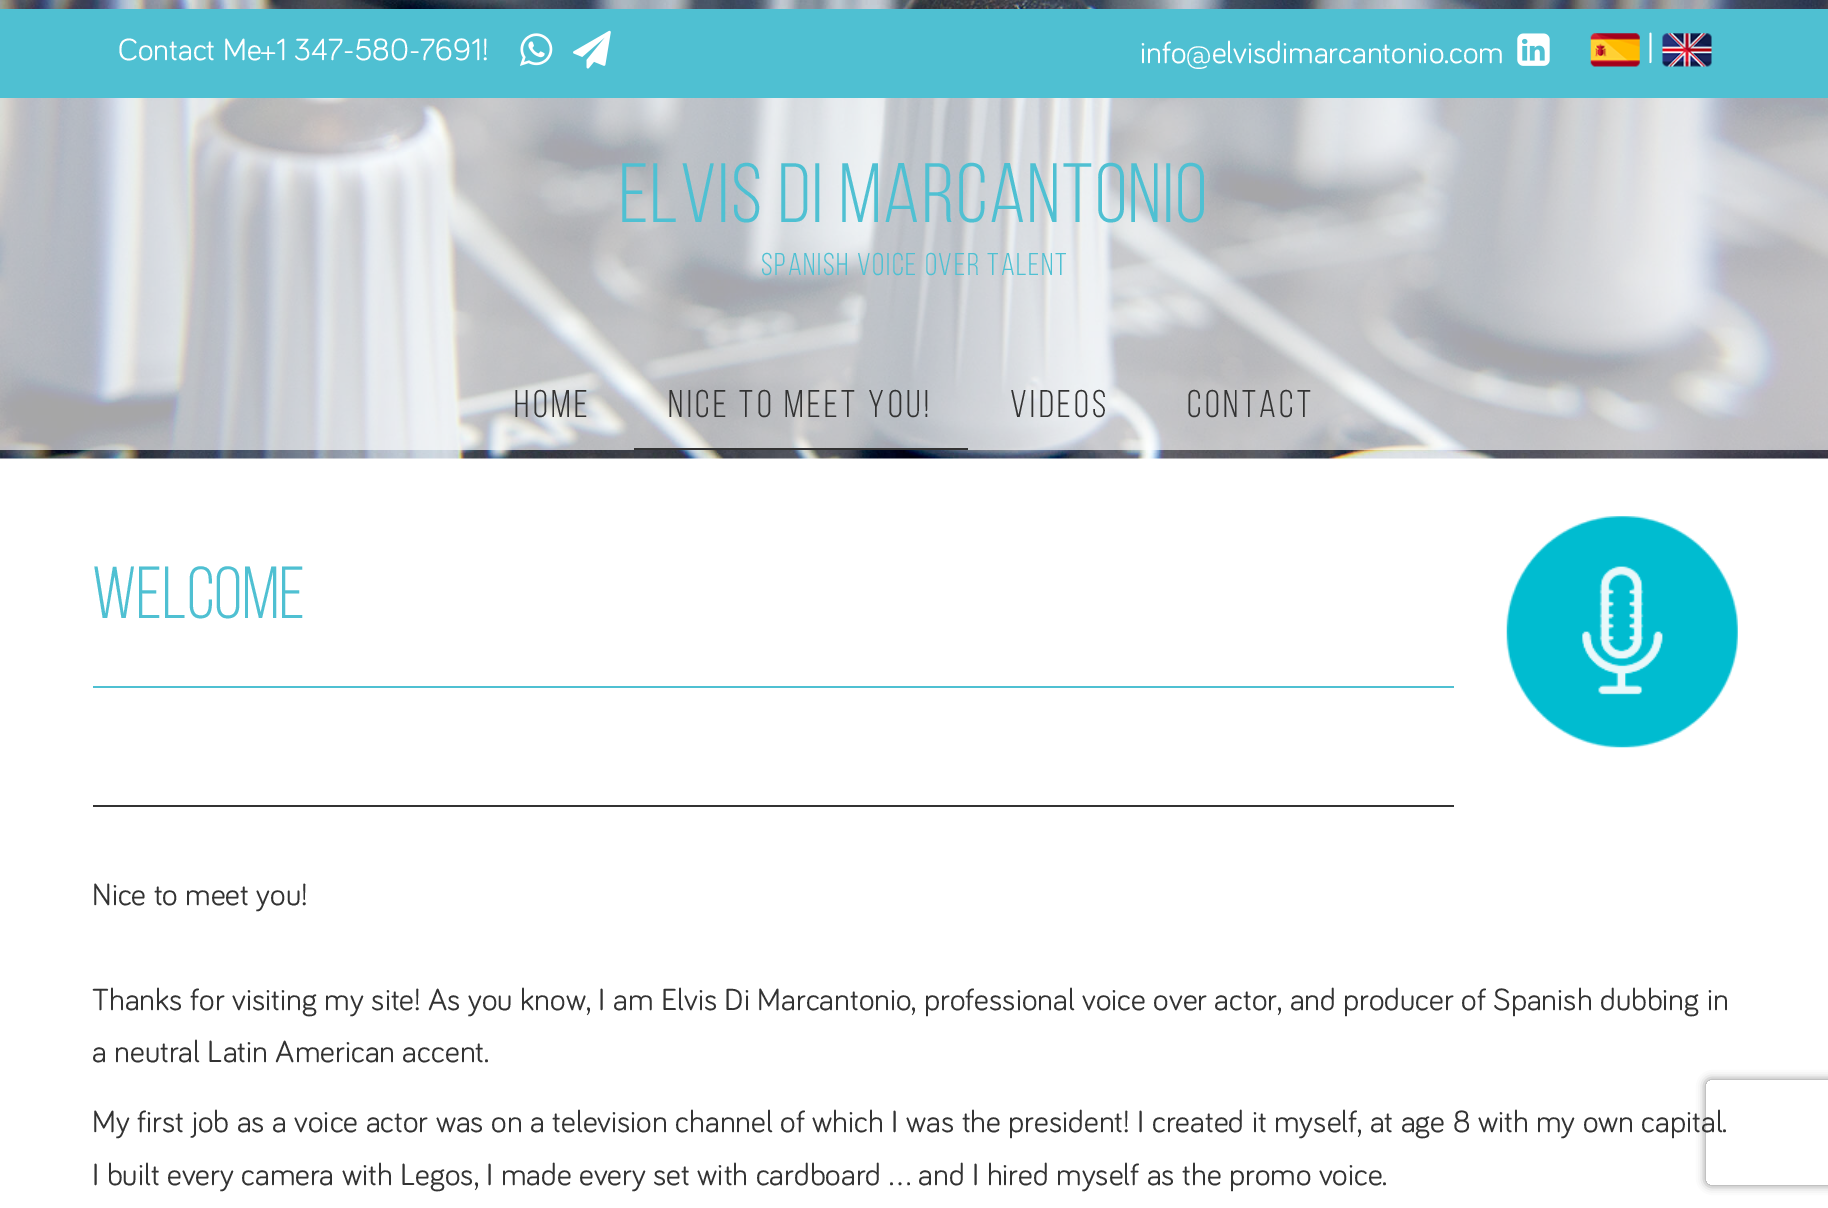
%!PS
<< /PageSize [1828 1208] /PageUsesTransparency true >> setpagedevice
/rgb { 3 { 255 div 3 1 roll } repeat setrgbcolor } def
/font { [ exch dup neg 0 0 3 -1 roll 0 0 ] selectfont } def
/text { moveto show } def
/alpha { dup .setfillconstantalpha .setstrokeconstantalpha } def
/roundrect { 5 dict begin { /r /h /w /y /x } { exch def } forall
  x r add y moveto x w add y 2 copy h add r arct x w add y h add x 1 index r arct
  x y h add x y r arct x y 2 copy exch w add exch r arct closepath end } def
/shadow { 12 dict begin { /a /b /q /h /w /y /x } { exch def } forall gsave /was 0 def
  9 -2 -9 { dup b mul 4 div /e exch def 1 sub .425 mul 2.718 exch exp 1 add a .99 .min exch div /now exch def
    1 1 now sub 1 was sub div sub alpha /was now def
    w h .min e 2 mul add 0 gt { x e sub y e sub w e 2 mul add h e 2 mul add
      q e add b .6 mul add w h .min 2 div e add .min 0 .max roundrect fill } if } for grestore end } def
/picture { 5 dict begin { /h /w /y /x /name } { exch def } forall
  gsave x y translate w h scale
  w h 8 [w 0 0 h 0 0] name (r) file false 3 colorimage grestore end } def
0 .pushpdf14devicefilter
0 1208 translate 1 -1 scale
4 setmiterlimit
255 255 255 rgb
0 0 1828 1208 rectfill
(img_01.rgb) 0 0 1828 459 picture
79 192 210 rgb
0 9 1828 89 rectfill
(img_02.rgb) 520 33 33 33 picture
(img_03.rgb) 573 30 38 39 picture
(img_04.rgb) 1517 33 33 33 picture
(img_05.rgb) 1590 33 50 34 picture
(img_06.rgb) 1662 33 50 34 picture
0.65 alpha
255 255 255 rgb
0 98 1828 352 rectfill
1 alpha
51 51 51 rgb
634 448 334 2 rectfill
79 192 210 rgb
93 686 1361 2 rectfill
(img_07.rgb) 1506 516 232 232 picture
51 51 51 rgb
93 805 1361 2 rectfill
gsave
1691 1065 moveto 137 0 rlineto 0 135 rlineto -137 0 rlineto closepath 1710 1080 moveto 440 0 rlineto 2 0 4 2 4 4 rcurveto 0 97 rlineto 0 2 -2 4 -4 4 rcurveto -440 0 rlineto -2 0 -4 -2 -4 -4 rcurveto 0 -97 rlineto 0 -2 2 -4 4 -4 rcurveto closepath eoclip newpath
128 128 128 rgb
1706 1080 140 105 4 4.5 1 shadow
grestore
/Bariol-Regular 31.5 font
255 255 255 rgb
(Contact Me+1 347-580-7691!) 118 60 text
(info@elvisdimarcantonio.com) 1140 63 text
(|) 1647 58 text
/BebasNeue-Regular 84 font
79 192 210 rgb
619 222 moveto 1.75 0 (ELVIS DI MARCANTONIO) ashow
/BebasNeue-Regular 31.5 font
761 275 moveto 1.75 0 (Spanish Voice Over Talent) ashow
/BebasNeue-Regular 38.5 font
51 51 51 rgb
514 417 moveto 3.5 0 (Home) ashow
668 417 moveto 3.5 0 (Nice to meet you!) ashow
1010 417 moveto 3.5 0 (Videos) ashow
1187 417 moveto 3.5 0 (Contact) ashow
/BebasNeue-Regular 73.5 font
79 192 210 rgb
(WELCOME) 92 618 text
/Bariol-Regular 31.5 font
51 51 51 rgb
(Nice to meet you!) 92 905 text
(Thanks for visiting my site! As you know, I am Elvis Di Marcantonio, professional voice over actor, and producer of Spanish dubbing in) 92 1010 text
(a neutral Latin American accent.) 92 1062 text
(My first job as a voice actor was on a television channel of which I was the president! I created it myself, at age 8 with my own capital.) 92 1132 text
(I built every camera with Legos, I made every set with cardboard … and I hired myself as the promo voice.) 92 1185 text
.poppdf14devicefilter showpage
